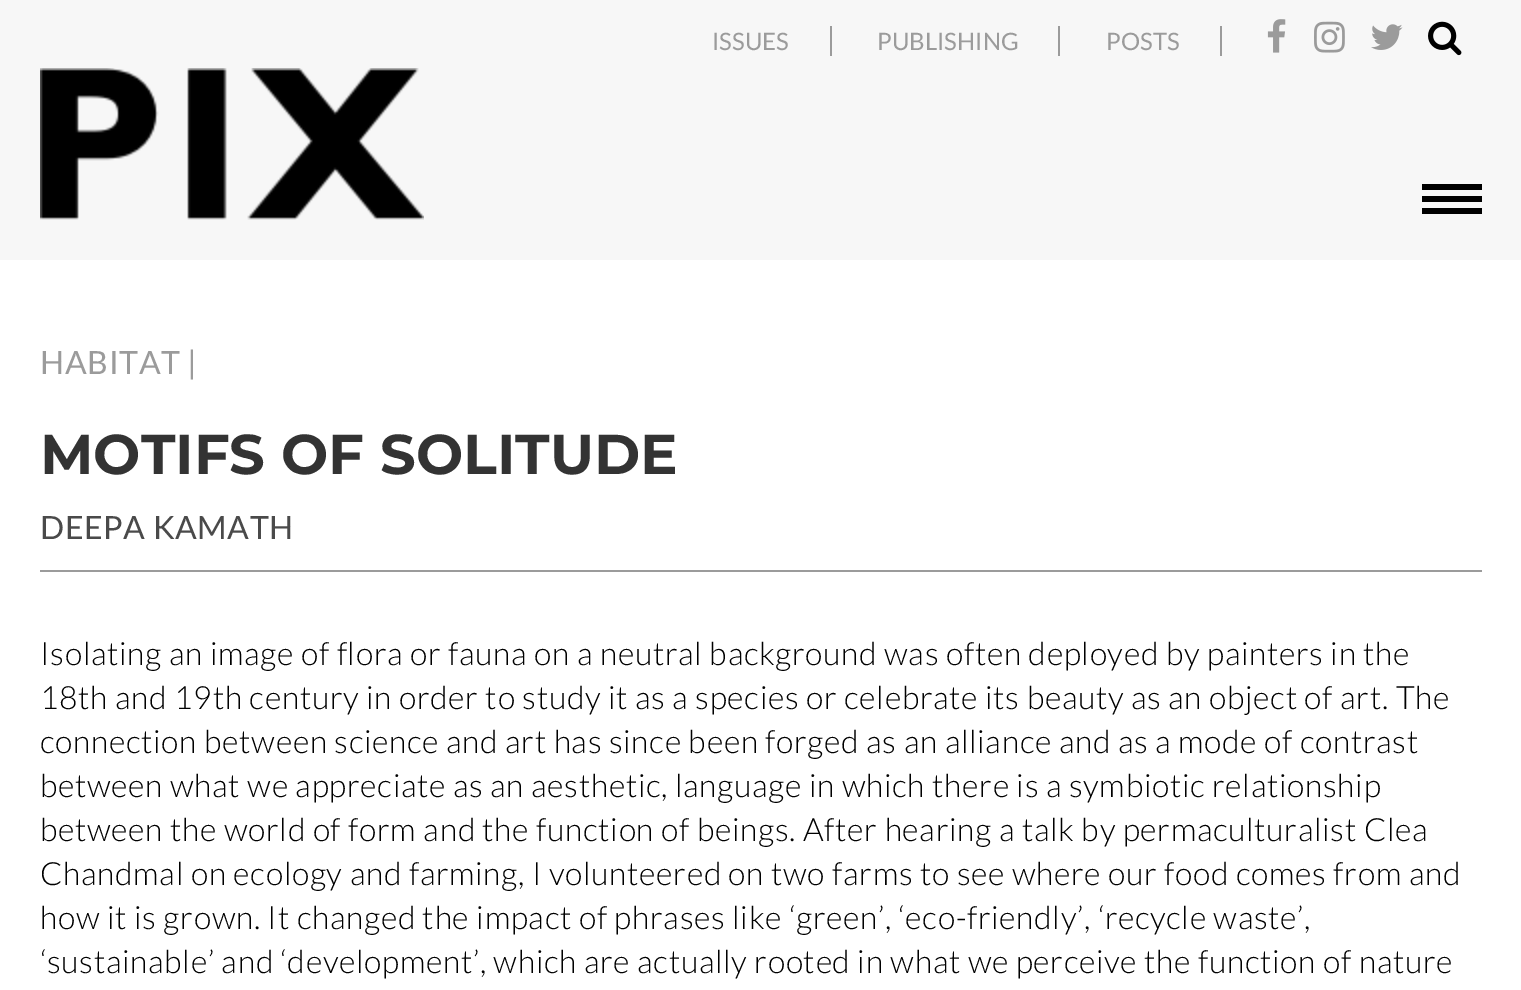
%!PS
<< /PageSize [1521 990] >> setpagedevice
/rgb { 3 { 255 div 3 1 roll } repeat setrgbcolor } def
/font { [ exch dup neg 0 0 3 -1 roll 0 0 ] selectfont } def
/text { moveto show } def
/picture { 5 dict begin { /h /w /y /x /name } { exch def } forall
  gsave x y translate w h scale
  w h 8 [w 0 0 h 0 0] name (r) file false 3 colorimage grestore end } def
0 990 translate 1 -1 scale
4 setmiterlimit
255 255 255 rgb
0 0 1521 990 rectfill
247 247 247 rgb
0 0 1521 260 rectfill
155 155 155 rgb
830 26 2 30 rectfill
1058 26 2 30 rectfill
1220 26 2 30 rectfill
(img_01.rgb) 1267 19 19 34 picture
(img_02.rgb) 1314 21 31 32 picture
(img_03.rgb) 1371 24 32 26 picture
(img_04.rgb) 1428 21 34 35 picture
(img_05.rgb) 40 68 384 152 picture
0 0 0 rgb
1422 184 60 6 rectfill
1422 196 60 6 rectfill
1422 208 60 6 rectfill
155 155 155 rgb
40 570 1442 2 rectfill
/Lato-Regular 24 font
(ISSUES) 712 50 text
(PUBLISHING) 877 50 text
(POSTS) 1106 50 text
/Lato-Regular 32 font
40 374 moveto 0.64 0 (HABITAT |) ashow
/Montserrat-Bold 56 font
51 51 51 rgb
(MOTIFS OF SOLITUDE) 40 474 text
/Lato-Regular 32 font
74 74 74 rgb
40 539 moveto 0.64 0 (DEEPA KAMATH) ashow
/Lato-Light 32 font
0 0 0 rgb
40 665 moveto 0.64 0 (Isolating an image of flora or fauna on a neutral background was often deployed by painters in the) ashow
40 709 moveto 0.64 0 (18th and 19th century in order to study it as a species or celebrate its beauty as an object of art. The) ashow
40 753 moveto 0.64 0 (connection between science and art has since been forged as an alliance and as a mode of contrast) ashow
40 797 moveto 0.64 0 (between what we appreciate as an aesthetic, language in which there is a symbiotic relationship) ashow
40 841 moveto 0.64 0 (between the world of form and the function of beings. After hearing a talk by permaculturalist Clea) ashow
40 885 moveto 0.64 0 (Chandmal on ecology and farming, I volunteered on two farms to see where our food comes from and) ashow
40 929 moveto 0.64 0 (how it is grown. It changed the impact of phrases like ‘green’, ‘eco-friendly’, ‘recycle waste’,) ashow
40 973 moveto 0.64 0 (‘sustainable’ and ‘development’, which are actually rooted in what we perceive the function of nature) ashow
showpage
